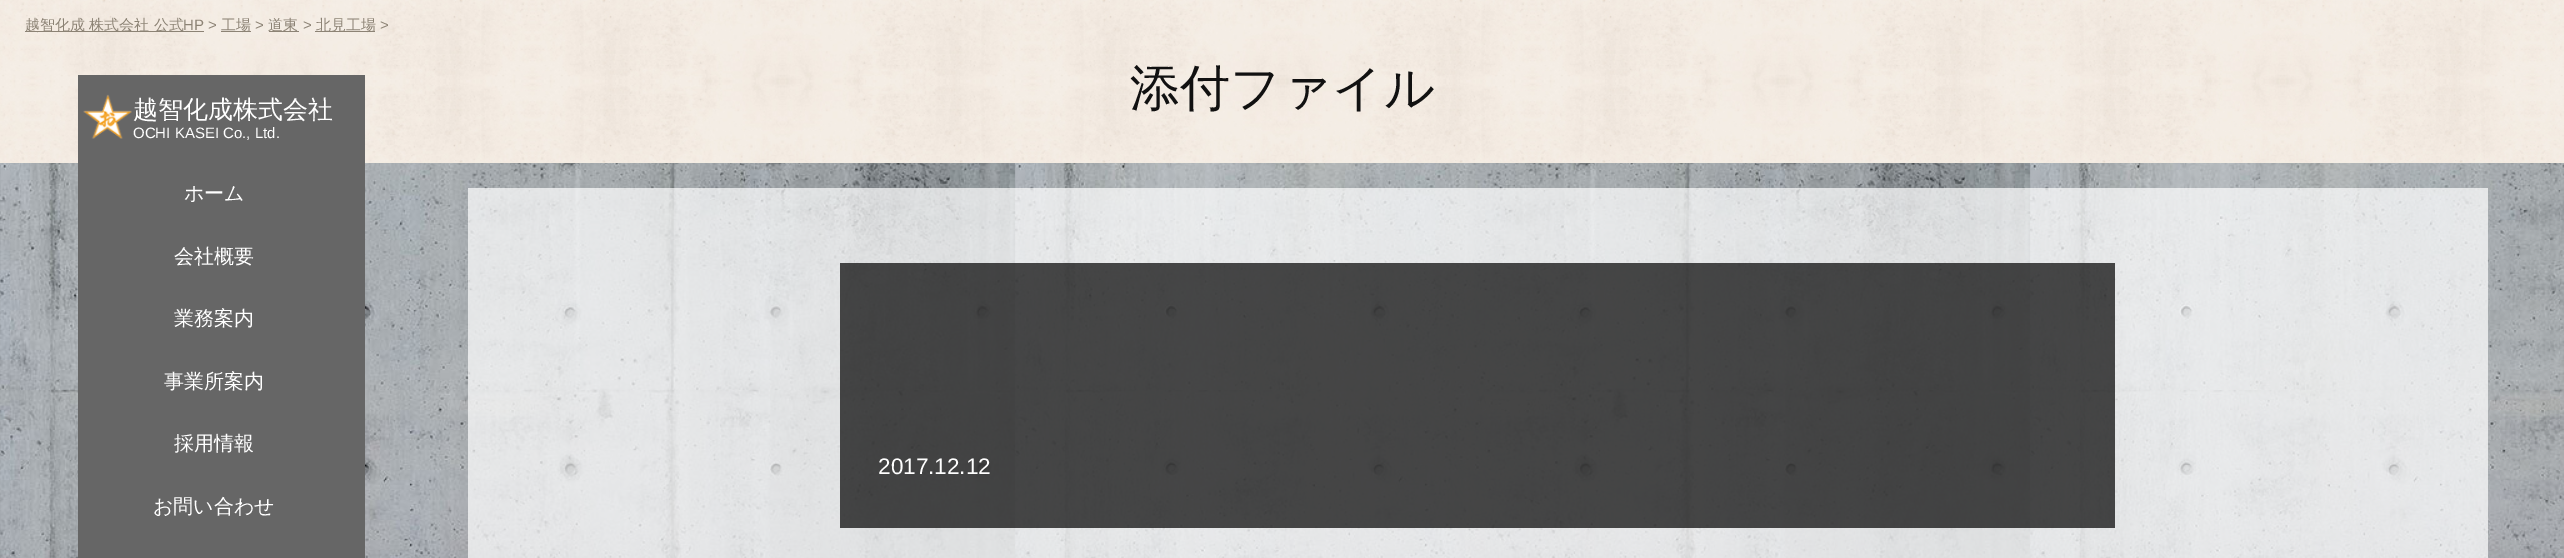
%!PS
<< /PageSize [2564 558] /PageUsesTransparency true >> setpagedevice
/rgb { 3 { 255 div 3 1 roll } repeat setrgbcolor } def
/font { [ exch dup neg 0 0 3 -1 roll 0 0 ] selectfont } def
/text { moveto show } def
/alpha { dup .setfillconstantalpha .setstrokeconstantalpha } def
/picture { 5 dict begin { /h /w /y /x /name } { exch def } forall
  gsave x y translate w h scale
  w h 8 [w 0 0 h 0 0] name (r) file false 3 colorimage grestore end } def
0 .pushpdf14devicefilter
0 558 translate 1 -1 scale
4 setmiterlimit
255 255 255 rgb
0 0 2564 558 rectfill
(img_01.rgb) 0 163 2564 395 picture
243 236 224 rgb
0 162 2564 1 rectfill
(img_02.rgb) 0 0 2564 163 picture
140 131 117 rgb
25 31 179 1 rectfill
221 31 30 1 rectfill
269 31 30 1 rectfill
315 31 60 1 rectfill
102 102 102 rgb
78 75 287 483 rectfill
(img_03.rgb) 83 94 49 45 picture
0.7 alpha
255 255 255 rgb
468 188 2020 370 rectfill
0 0 0 rgb
840 263 1275 265 rectfill
/WenQuanYiZenHei-Medium 15 font
1 alpha
140 131 117 rgb
(越智化成 株式会社 公式) 25 30 text
/LiberationSans-Regular 15 font
(HP >) 183 30 text
/WenQuanYiZenHei-Medium 15 font
(工場) 221 30 text
/LiberationSans-Regular 15 font
(>) 255 30 text
/WenQuanYiZenHei-Medium 15 font
(道東) 268 30 text
/LiberationSans-Regular 15 font
(>) 303 30 text
/WenQuanYiZenHei-Medium 15 font
(北見工場) 316 30 text
/LiberationSans-Regular 15 font
(>) 380 30 text
/WenQuanYiZenHei-Medium 50 font
17 17 17 rgb
(添付ファイル) 1130 105 text
/WenQuanYiZenHei-Medium 25 font
255 255 255 rgb
(越智化成株式会社) 133 118 text
/LiberationSans-Regular 15 font
(OCHI KASEI Co., Ltd.) 133 138 text
/WenQuanYiZenHei-Medium 20 font
(ホーム) 184 200 text
(会社概要) 174 263 text
(業務案内) 174 325 text
(事業所案内) 164 388 text
(採用情報) 174 450 text
(お問い合わせ) 153 513 text
/LiberationSans-Regular 22.5 font
(2017.12.12) 878 474 text
.poppdf14devicefilter showpage
